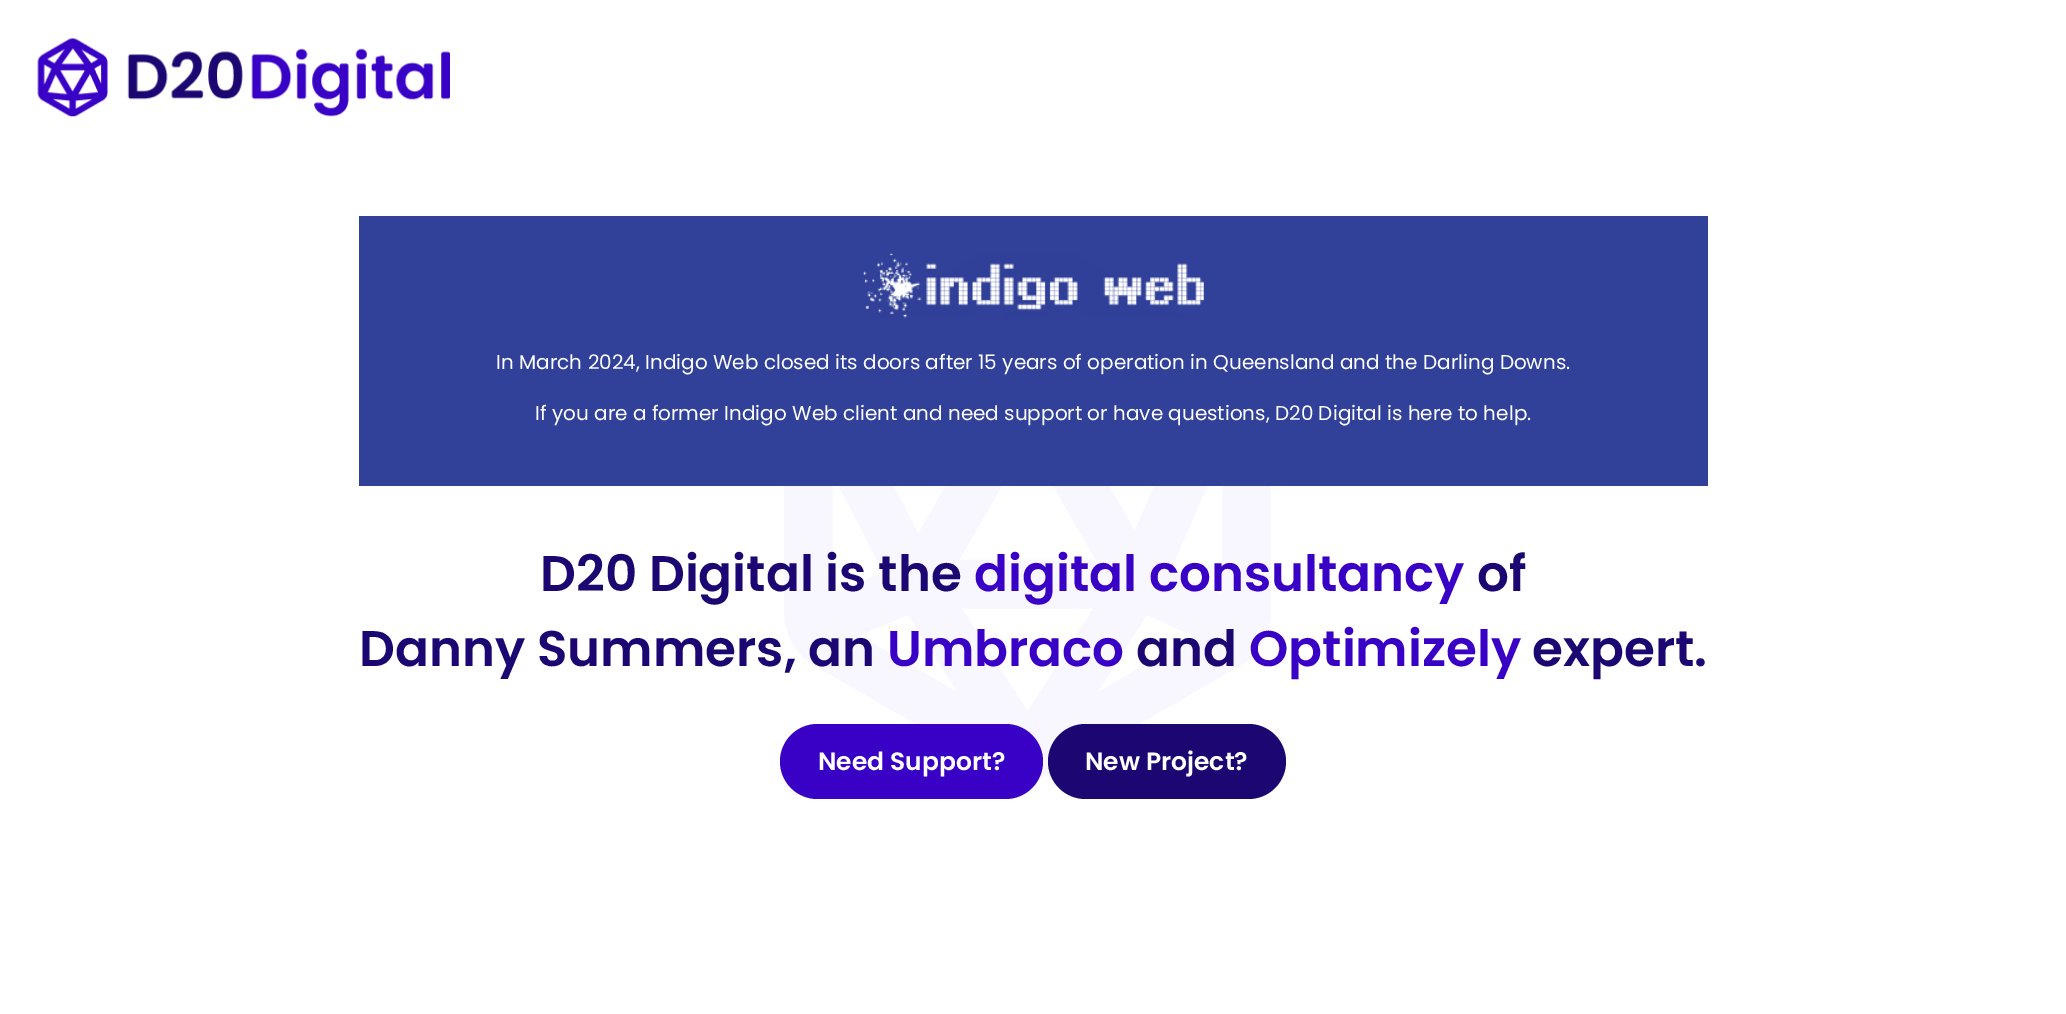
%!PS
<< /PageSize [2066 1014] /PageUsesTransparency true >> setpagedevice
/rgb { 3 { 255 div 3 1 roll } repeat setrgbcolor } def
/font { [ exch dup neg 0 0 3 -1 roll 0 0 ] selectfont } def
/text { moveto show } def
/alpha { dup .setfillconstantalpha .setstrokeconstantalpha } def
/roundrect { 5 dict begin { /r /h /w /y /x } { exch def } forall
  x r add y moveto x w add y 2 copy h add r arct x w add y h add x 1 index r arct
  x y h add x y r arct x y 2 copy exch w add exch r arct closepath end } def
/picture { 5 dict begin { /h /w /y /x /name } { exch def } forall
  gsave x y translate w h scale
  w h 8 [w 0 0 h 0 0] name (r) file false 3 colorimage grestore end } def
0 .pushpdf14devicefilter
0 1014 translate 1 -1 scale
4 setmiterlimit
255 255 255 rgb
0 0 2066 1014 rectfill
(img_01.rgb) 784 235 487 544 picture
(img_02.rgb) 37 38 413 79 picture
0.95 alpha
38 54 147 rgb
359 216 1349 270 rectfill
1 alpha
(img_03.rgb) 863 253 341 65 picture
57 0 198 rgb
780 724 263 75 37.5 roundrect fill
28 7 114 rgb
1048 724 238 75 37.5 roundrect fill
/Poppins-Regular 20 font
255 255 255 rgb
(In March 2024, Indigo Web closed its doors after 15 years of operation in Queensland and the Darling Downs.) 496 369 text
(If you are a former Indigo Web client and need support or have questions, D20 Digital is here to help.) 535 420 text
/Poppins-SemiBold 50 font
28 7 114 rgb
(D20 Digital is the) 540 591 text
57 0 198 rgb
(digital consultancy) 974 591 text
28 7 114 rgb
(of) 1477 591 text
(Danny Summers, an) 359 666 text
57 0 198 rgb
(Umbraco) 887 666 text
28 7 114 rgb
(and) 1136 666 text
57 0 198 rgb
(Optimizely) 1249 666 text
28 7 114 rgb
(expert.) 1532 666 text
/Poppins-SemiBold 25 font
255 255 255 rgb
(Need Support?) 818 770 text
(New Project?) 1085 770 text
.poppdf14devicefilter showpage
